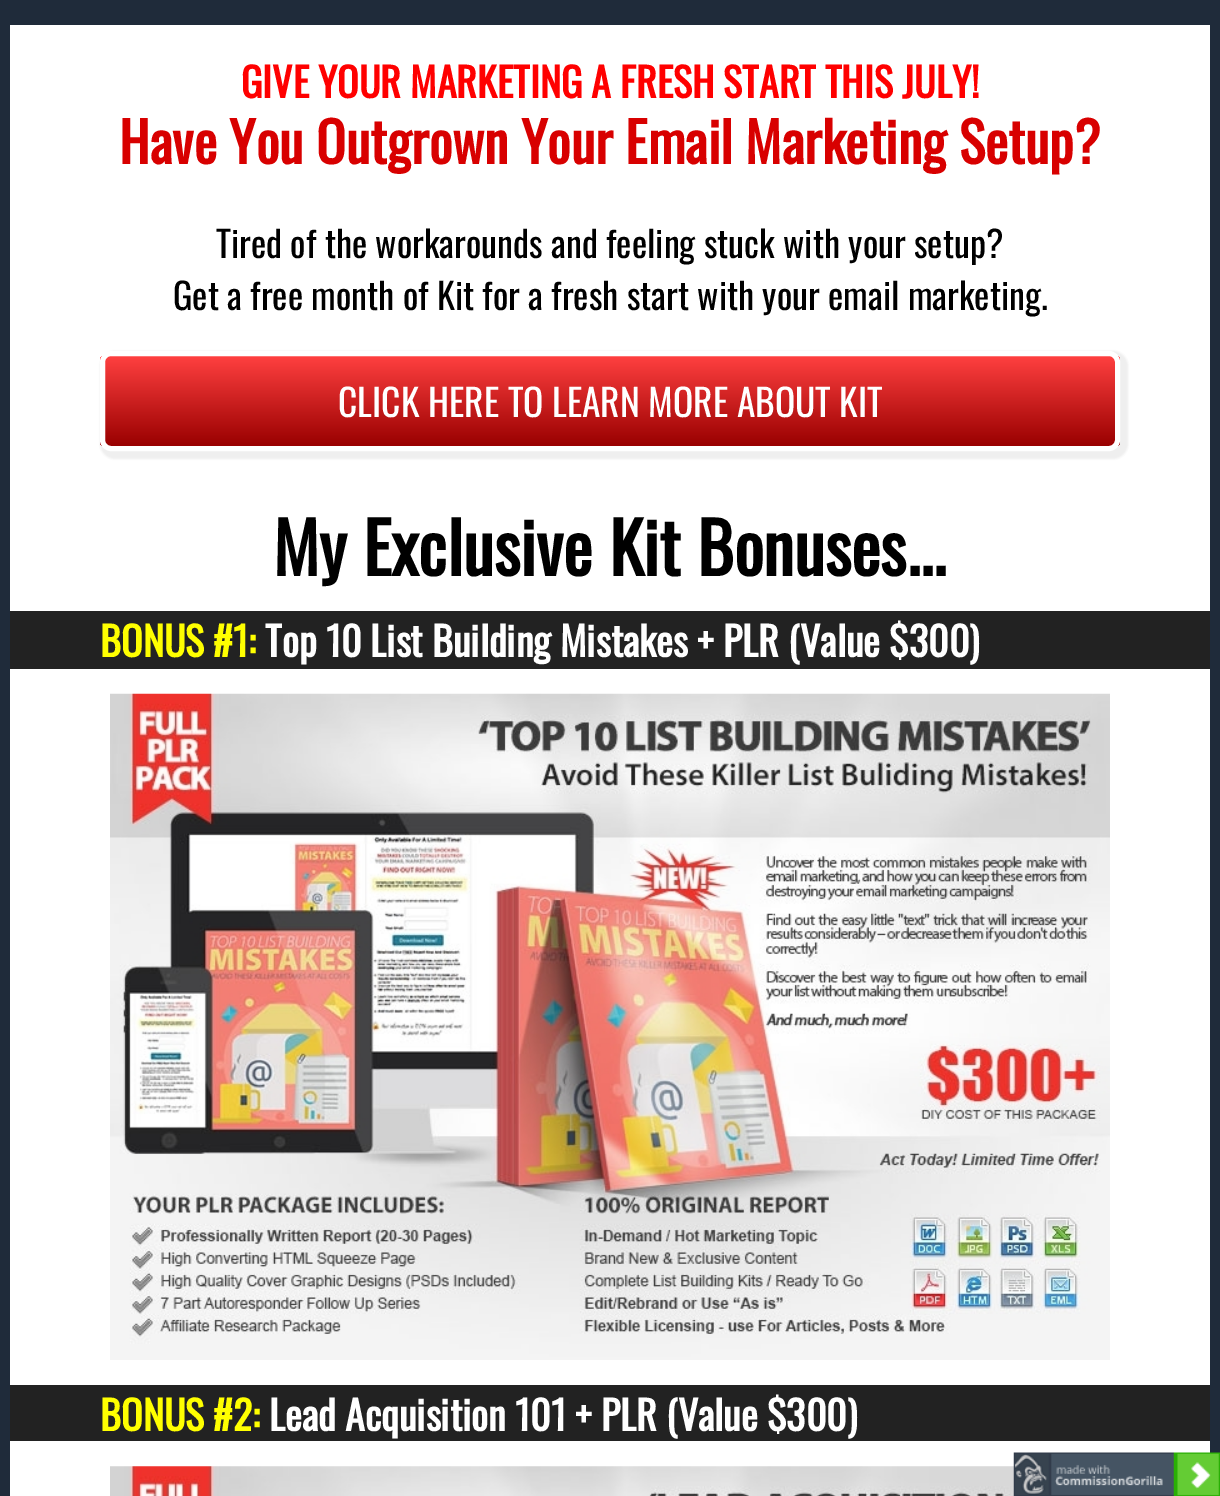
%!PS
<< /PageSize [1220 1496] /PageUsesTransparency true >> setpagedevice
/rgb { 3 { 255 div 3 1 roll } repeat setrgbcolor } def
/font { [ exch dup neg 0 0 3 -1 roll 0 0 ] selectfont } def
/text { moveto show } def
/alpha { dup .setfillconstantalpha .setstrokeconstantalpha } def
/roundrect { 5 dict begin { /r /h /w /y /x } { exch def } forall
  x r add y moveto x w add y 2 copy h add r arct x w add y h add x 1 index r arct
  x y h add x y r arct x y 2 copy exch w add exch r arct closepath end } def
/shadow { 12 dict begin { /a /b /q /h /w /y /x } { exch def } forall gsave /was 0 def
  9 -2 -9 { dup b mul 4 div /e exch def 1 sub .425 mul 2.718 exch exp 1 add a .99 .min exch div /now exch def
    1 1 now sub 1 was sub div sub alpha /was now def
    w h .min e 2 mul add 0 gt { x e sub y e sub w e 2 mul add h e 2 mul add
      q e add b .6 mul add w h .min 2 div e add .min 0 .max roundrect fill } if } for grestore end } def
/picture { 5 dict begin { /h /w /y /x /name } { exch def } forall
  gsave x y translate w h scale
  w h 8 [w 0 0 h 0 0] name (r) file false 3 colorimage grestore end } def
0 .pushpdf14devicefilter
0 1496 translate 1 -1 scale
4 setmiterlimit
31 43 58 rgb
0 0 1220 1496 rectfill
255 255 255 rgb
10 25 1200 1471 rectfill
238 238 238 rgb
100 351 1028 108 15 1 1 shadow
gsave
100 351 1020 100 11 roundrect clip newpath
gsave 100 356 moveto 1020 0 rlineto 0 90 rlineto -1020 0 rlineto closepath clip newpath
<< /ShadingType 2 /ColorSpace /DeviceRGB /Coords [610 356 610 446] /Extend [true true] /Function << /FunctionType 2 /Domain [0 1] /C0 [1 0.251 0.251] /C1 [0.6 0 0] /N 1 >> >> shfill grestore
grestore
255 255 255 rgb
5 setlinewidth
102.5 353.5 1015 95 8.5 roundrect stroke
34 34 34 rgb
10 611 1200 58 rectfill
(img_01.rgb) 110 693 1000 667 picture
10 1385 1200 56 rectfill
(img_02.rgb) 110 1466 904 30 picture
(img_03.rgb) 1013 1452 207 44 picture
/Oswald-Bold 40 font
255 0 0 rgb
(GIVE YOUR MARKETING A FRESH START THIS JULY!) 241 98 text
/Oswald-Bold 55 font
216 0 0 rgb
(Have You Outgrown Your Email Marketing Setup?) 119 164 text
/Oswald-Regular 36.25 font
0 0 0 rgb
(Tired of the workarounds and feeling stuck with your setup?) 216 258 text
(Get a free month of Kit for a fresh start with your email marketing.) 173 310 text
/Oswald-Regular 37.5 font
255 255 255 rgb
(CLICK HERE TO LEARN MORE ABOUT KIT) 338 417 text
/Oswald-Bold 70 font
0 0 0 rgb
(My Exclusive Kit Bonuses...) 273 576 text
/Oswald-Bold 40 font
255 255 0 rgb
(BONUS #1:) 100 657 text
255 255 255 rgb
(Top 10 List Building Mistakes + PLR \(Value $300\)) 265 657 text
255 255 0 rgb
(BONUS #2:) 100 1431 text
255 255 255 rgb
(Lead Acquisition 101 + PLR \(Value $300\)) 269 1431 text
.poppdf14devicefilter showpage
